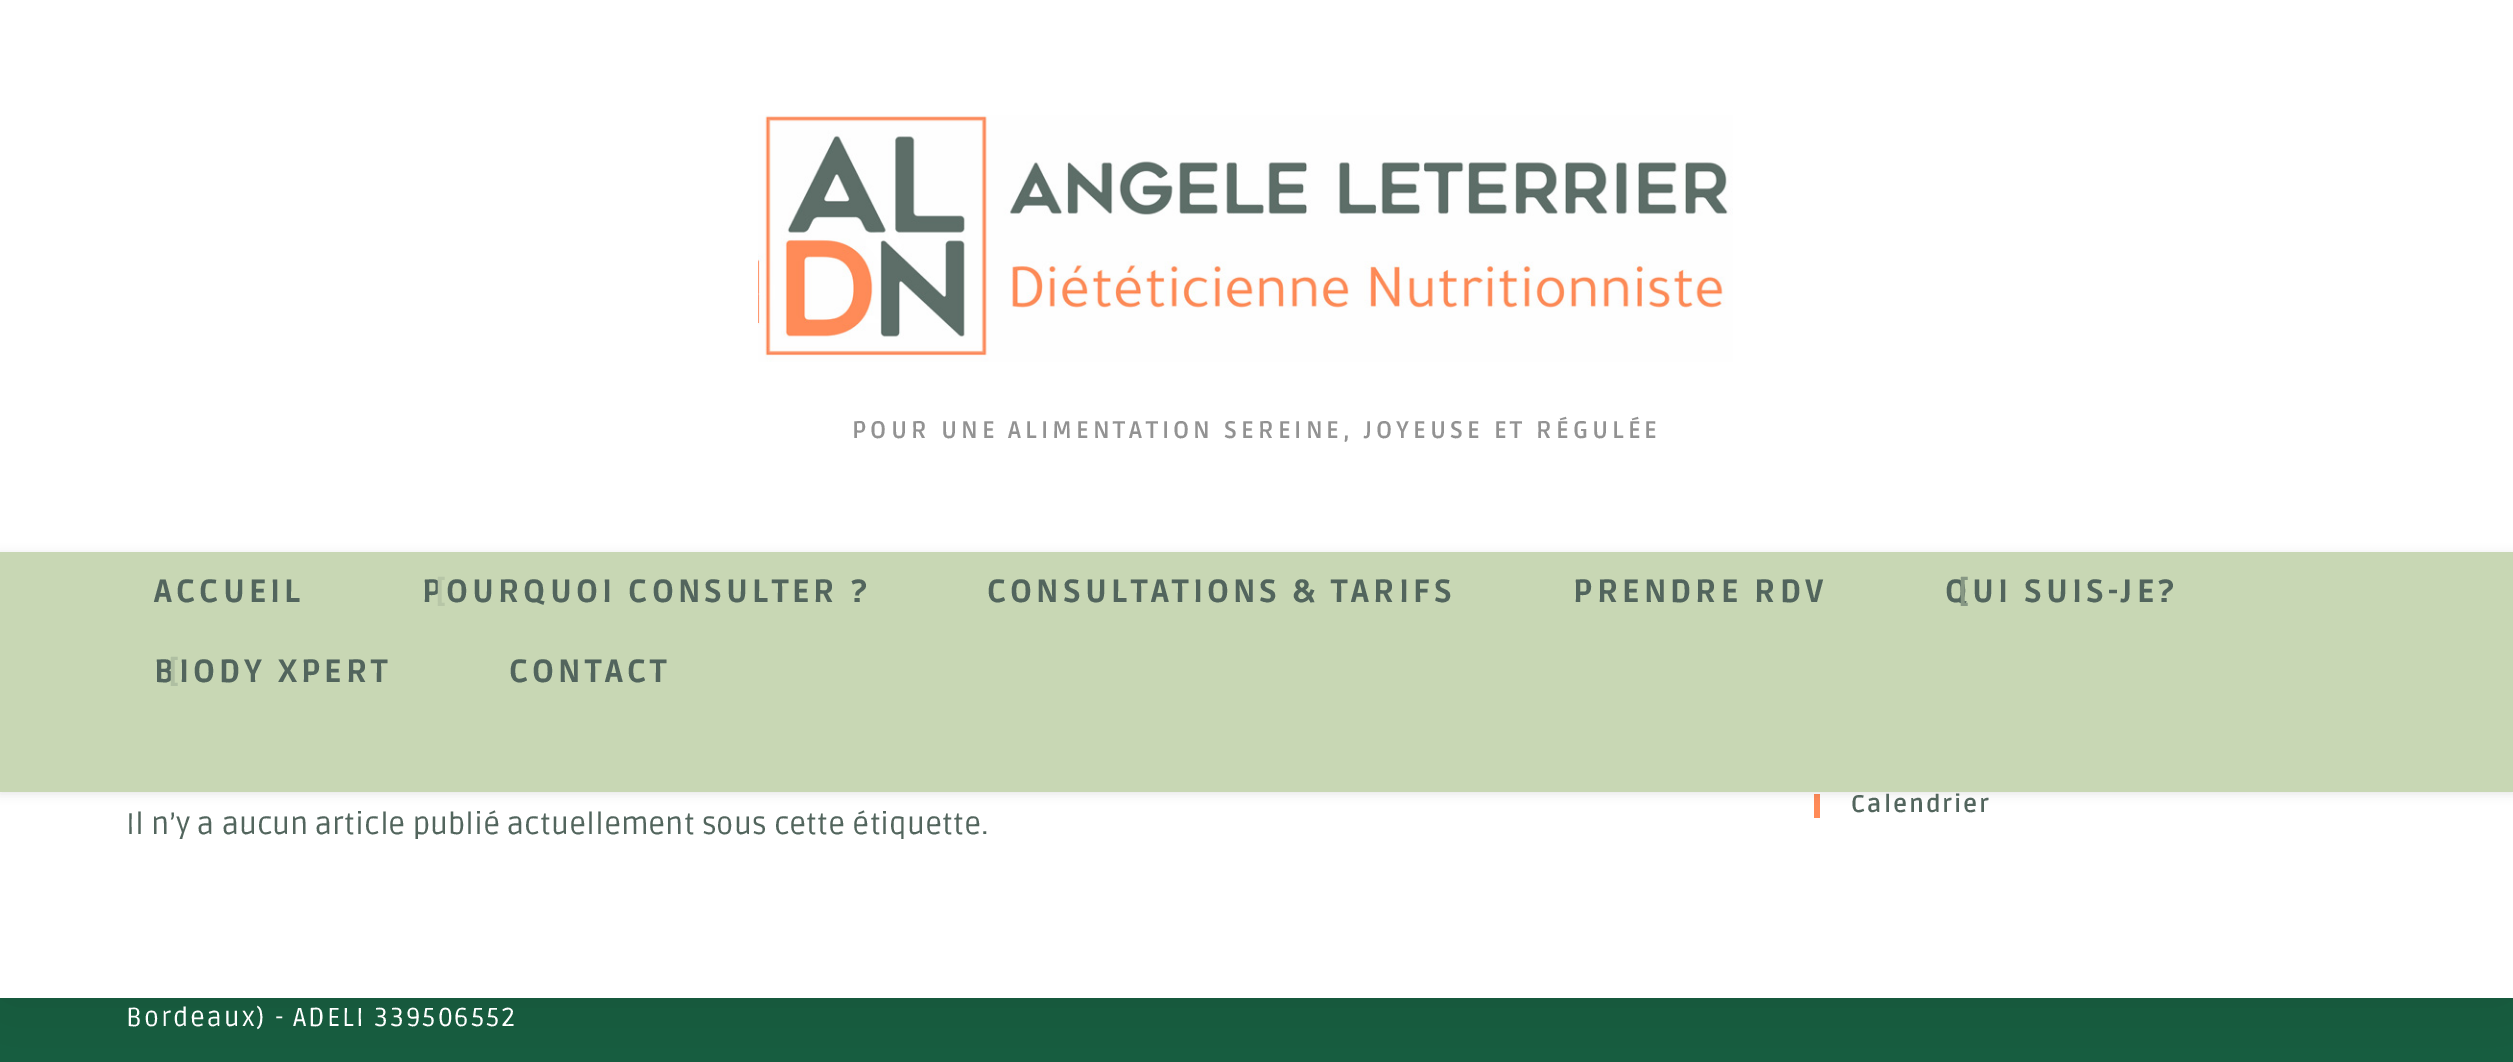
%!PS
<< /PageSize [2513 1062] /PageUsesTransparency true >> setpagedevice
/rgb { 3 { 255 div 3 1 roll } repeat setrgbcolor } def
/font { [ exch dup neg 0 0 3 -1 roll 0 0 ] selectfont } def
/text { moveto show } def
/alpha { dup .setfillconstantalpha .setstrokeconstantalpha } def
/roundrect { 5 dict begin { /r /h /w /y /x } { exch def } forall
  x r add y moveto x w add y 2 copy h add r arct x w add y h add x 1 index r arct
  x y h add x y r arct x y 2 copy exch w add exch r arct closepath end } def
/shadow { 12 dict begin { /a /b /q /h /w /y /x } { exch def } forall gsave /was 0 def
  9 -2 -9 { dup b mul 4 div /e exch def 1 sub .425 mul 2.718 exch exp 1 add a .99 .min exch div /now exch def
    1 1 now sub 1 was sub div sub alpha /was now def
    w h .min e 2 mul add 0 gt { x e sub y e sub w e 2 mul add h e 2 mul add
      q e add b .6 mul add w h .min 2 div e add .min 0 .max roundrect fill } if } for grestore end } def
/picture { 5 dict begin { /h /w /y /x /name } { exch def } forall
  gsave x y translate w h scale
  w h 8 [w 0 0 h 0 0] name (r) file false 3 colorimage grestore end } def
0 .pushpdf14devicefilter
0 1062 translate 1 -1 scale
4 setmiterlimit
23 93 64 rgb
0 0 2513 1062 rectfill
255 255 255 rgb
0 0 2513 552 rectfill
(img_01.rgb) 758 115 975 247 picture
0 0 0 rgb
0 792 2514 206 0 40 0.1 shadow
255 255 255 rgb
0 792 2513 206 rectfill
255 139 88 rgb
1814 794 6 24 rectfill
0 0 0 rgb
0 554 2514 240 0 5 0.1 shadow
200 215 180 rgb
0 552 2513 240 rectfill
/Ruda-Bold 24 font
146 146 146 rgb
852 438 moveto 4 0 (POUR UNE ALIMENTATION SEREINE, JOYEUSE ET RÉGULÉE) ashow
/Ruda-ExtraBold 32 font
82 101 93 rgb
154 602 moveto 4 0 (ACCUEIL) ashow
422 602 moveto 4 0 (POURQUOI CONSULTER ?) ashow
183 198 167 rgb
435 602 moveto 4 0 ([) ashow
82 101 93 rgb
987 602 moveto 4 0 (CONSULTATIONS & TARIFS) ashow
1573 602 moveto 4 0 (PRENDRE RDV) ashow
1945 602 moveto 4 0 (QUI SUIS-JE?) ashow
135 152 132 rgb
1958 602 moveto 4 0 ([) ashow
82 101 93 rgb
154 682 moveto 4 0 (BIODY XPERT) ashow
175 191 162 rgb
168 682 moveto 4 0 ([) ashow
82 101 93 rgb
509 682 moveto 4 0 (CONTACT) ashow
/Ruda-Bold 24 font
1851 812 moveto 2 0 (Calendrier) ashow
/Ruda-Regular 30 font
(Il n’y a aucun article publié actuellement sous cette étiquette.) 126 834 text
/Ruda-Regular 26 font
255 255 255 rgb
126 1026 moveto 2 0 (Bordeaux\) - ADELI 339506552) ashow
.poppdf14devicefilter showpage
